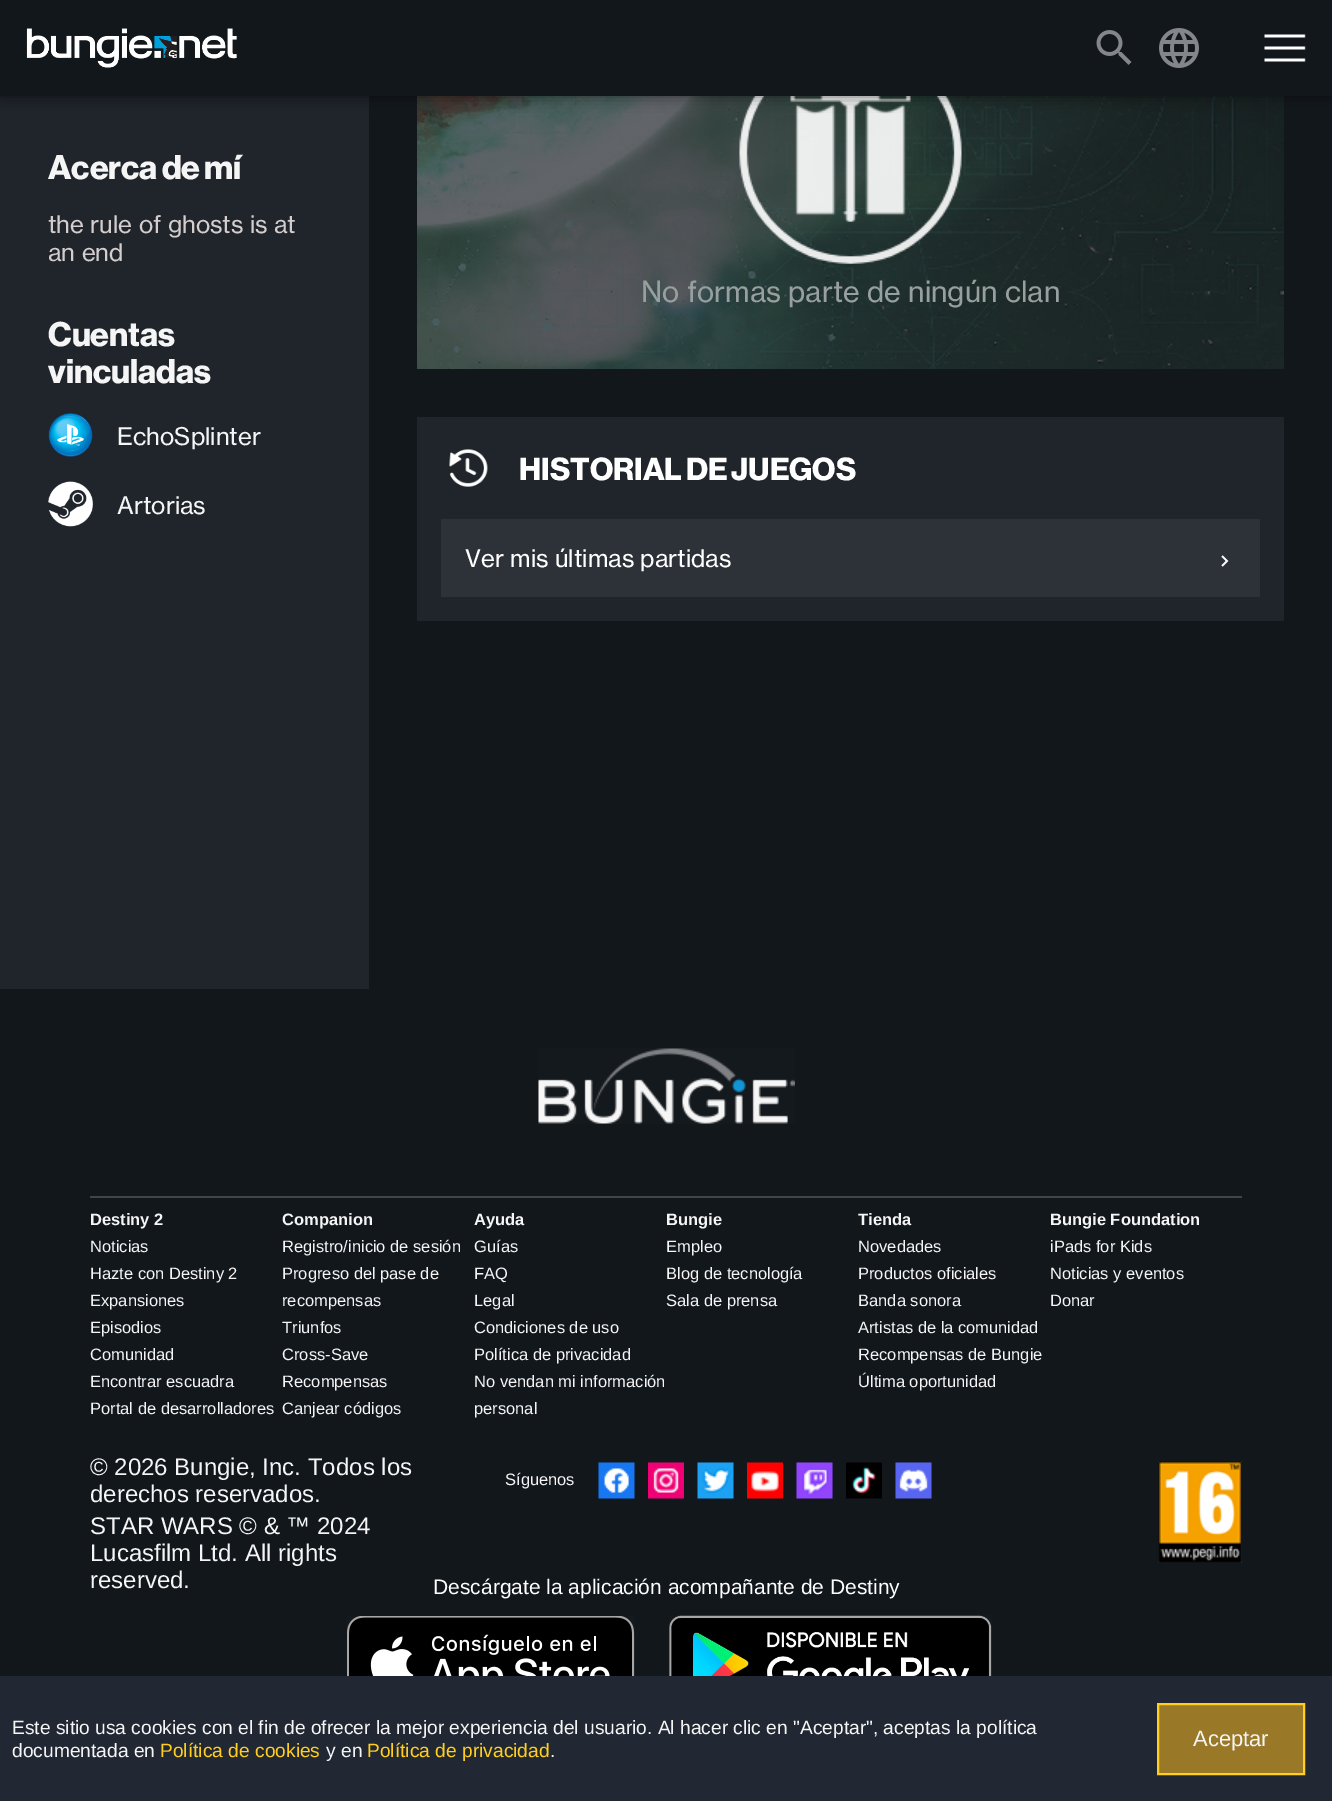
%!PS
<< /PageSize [1332 1801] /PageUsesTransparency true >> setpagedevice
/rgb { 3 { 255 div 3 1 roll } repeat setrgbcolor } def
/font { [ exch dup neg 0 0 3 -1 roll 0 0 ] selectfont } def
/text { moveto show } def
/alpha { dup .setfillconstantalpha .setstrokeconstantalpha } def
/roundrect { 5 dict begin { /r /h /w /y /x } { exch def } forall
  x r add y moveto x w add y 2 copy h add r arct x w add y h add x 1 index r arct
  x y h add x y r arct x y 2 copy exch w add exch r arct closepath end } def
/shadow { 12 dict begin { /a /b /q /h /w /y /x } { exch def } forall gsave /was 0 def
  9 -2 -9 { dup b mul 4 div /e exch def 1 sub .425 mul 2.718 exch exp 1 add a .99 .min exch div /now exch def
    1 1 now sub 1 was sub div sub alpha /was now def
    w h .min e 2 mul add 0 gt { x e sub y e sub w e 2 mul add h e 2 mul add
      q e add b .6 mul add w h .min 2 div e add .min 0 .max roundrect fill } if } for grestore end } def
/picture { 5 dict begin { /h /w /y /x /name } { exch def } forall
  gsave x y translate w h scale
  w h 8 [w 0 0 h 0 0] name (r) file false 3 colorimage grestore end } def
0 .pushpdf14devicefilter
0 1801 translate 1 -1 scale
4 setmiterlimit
18 23 28 rgb
0 0 1332 1801 rectfill
32 37 43 rgb
0 96 369 893 rectfill
(img_07.rgb) 417 96 867 273 picture
(img_08.rgb) 739 96 223 168 picture
0 0 0 rgb
0 0 1332 96 0 7.5 0.5 shadow
18 23 28 rgb
0 0 1332 96 rectfill
(img_01.rgb) 26 28 211 40 picture
(img_02.rgb) 1096 30 36 35 picture
(img_03.rgb) 1159 28 40 40 picture
(img_04.rgb) 1264 34 42 28 picture
(img_05.rgb) 48 413 45 44 picture
(img_06.rgb) 48 481 45 46 picture
32 37 43 rgb
417 417 867 204 rectfill
(img_09.rgb) 449 449 39 38 picture
45 50 56 rgb
441 519 819 78 rectfill
(img_10.rgb) 1221 555 8 12 picture
(img_11.rgb) 538 1048 257 76 picture
65 69 73 rgb
90 1196 1152 2 rectfill
(img_12.rgb) 598 1462 37 37 picture
(img_13.rgb) 648 1462 36 37 picture
(img_14.rgb) 697 1462 37 37 picture
(img_15.rgb) 747 1462 36 37 picture
(img_16.rgb) 796 1462 37 37 picture
(img_17.rgb) 846 1462 36 37 picture
(img_18.rgb) 895 1462 37 37 picture
(img_19.rgb) 1158 1461 84 102 picture
(img_20.rgb) 347 1616 288 60 picture
(img_21.rgb) 669 1615 323 61 picture
33 40 51 rgb
0 1676 1332 125 rectfill
153 120 40 rgb
1159 1705 144 68 rectfill
255 206 31 rgb
2 setlinewidth
1158 1704 146 70 rectstroke
/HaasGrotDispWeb-Bold 33.5 font
245 245 245 rgb
(Acerca de mí) 48 179 text
/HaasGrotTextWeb-Regular 24 font
211 205 205 rgb
(the rule of ghosts is at) 48 233 text
(an end) 48 261 text
/HaasGrotDispWeb-Bold 33.5 font
245 245 245 rgb
(Cuentas) 48 346 text
(vinculadas) 48 383 text
/HaasGrotTextWeb-Regular 24 font
(EchoSplinter) 117 445 text
(Artorias) 117 514 text
/HaasGrotTextWeb-Regular 28.75 font
152 160 159 rgb
(No formas parte de ningún clan) 641 302 text
/HaasGrotDispWeb-Bold 31.25 font
255 255 255 rgb
(HISTORIAL DE JUEGOS) 519 480 text
/HaasGrotTextWeb-Regular 24 font
(Ver mis últimas partidas) 465 567 text
/LiberationSans-Bold 16.5 font
245 245 245 rgb
(Destiny 2) 90 1225 text
/LiberationSans-Regular 16.5 font
(Noticias) 90 1252 text
(Hazte con Destiny 2) 90 1279 text
(Expansiones) 90 1306 text
(Episodios) 90 1333 text
(Comunidad) 90 1360 text
(Encontrar escuadra) 90 1387 text
(Portal de desarrolladores) 90 1414 text
/LiberationSans-Bold 16.5 font
(Companion) 282 1225 text
/LiberationSans-Regular 16.5 font
(Registro/inicio de sesión) 282 1252 text
(Progreso del pase de) 282 1279 text
(recompensas) 282 1306 text
(Triunfos) 282 1333 text
(Cross-Save) 282 1360 text
(Recompensas) 282 1387 text
(Canjear códigos) 282 1414 text
/LiberationSans-Bold 16.5 font
(Ayuda) 474 1225 text
/LiberationSans-Regular 16.5 font
(Guías) 474 1252 text
(FAQ) 474 1279 text
(Legal) 474 1306 text
(Condiciones de uso) 474 1333 text
(Política de privacidad) 474 1360 text
(No vendan mi información) 474 1387 text
(personal) 474 1414 text
/LiberationSans-Bold 16.5 font
(Bungie) 666 1225 text
/LiberationSans-Regular 16.5 font
(Empleo) 666 1252 text
(Blog de tecnología) 666 1279 text
(Sala de prensa) 666 1306 text
/LiberationSans-Bold 16.5 font
(Tienda) 858 1225 text
/LiberationSans-Regular 16.5 font
(Novedades) 858 1252 text
(Productos oficiales) 858 1279 text
(Banda sonora) 858 1306 text
(Artistas de la comunidad) 858 1333 text
(Recompensas de Bungie) 858 1360 text
(Última oportunidad) 858 1387 text
/LiberationSans-Bold 16.5 font
(Bungie Foundation) 1050 1225 text
/LiberationSans-Regular 16.5 font
(iPads for Kids) 1050 1252 text
(Noticias y eventos) 1050 1279 text
(Donar) 1050 1306 text
/LiberationSans-Regular 24 font
(© 2026 Bungie, Inc. Todos los) 90 1475 text
(derechos reservados.) 90 1502 text
/LiberationSans-Regular 16.5 font
(Síguenos) 505 1485 text
/LiberationSans-Regular 24 font
(STAR WARS © & ™ 2024) 90 1534 text
(Lucasfilm Ltd. All rights) 90 1561 text
(reserved.) 90 1588 text
/LiberationSans-Regular 21 font
255 255 255 rgb
(Descárgate la aplicación acompañante de Destiny) 433 1594 text
/LiberationSans-Regular 19.2 font
245 245 245 rgb
(Este sitio usa cookies con el fin de ofrecer la mejor experiencia del usuario. Al hacer clic en "Aceptar", aceptas la política) 12 1734 text
(documentada en) 12 1757 text
255 206 31 rgb
(Política de cookies) 160 1757 text
245 245 245 rgb
(y en) 326 1757 text
255 206 31 rgb
(Política de privacidad) 367 1757 text
245 245 245 rgb
(.) 550 1757 text
/LiberationSans-Regular 22 font
(Aceptar) 1193 1746 text
.poppdf14devicefilter showpage
